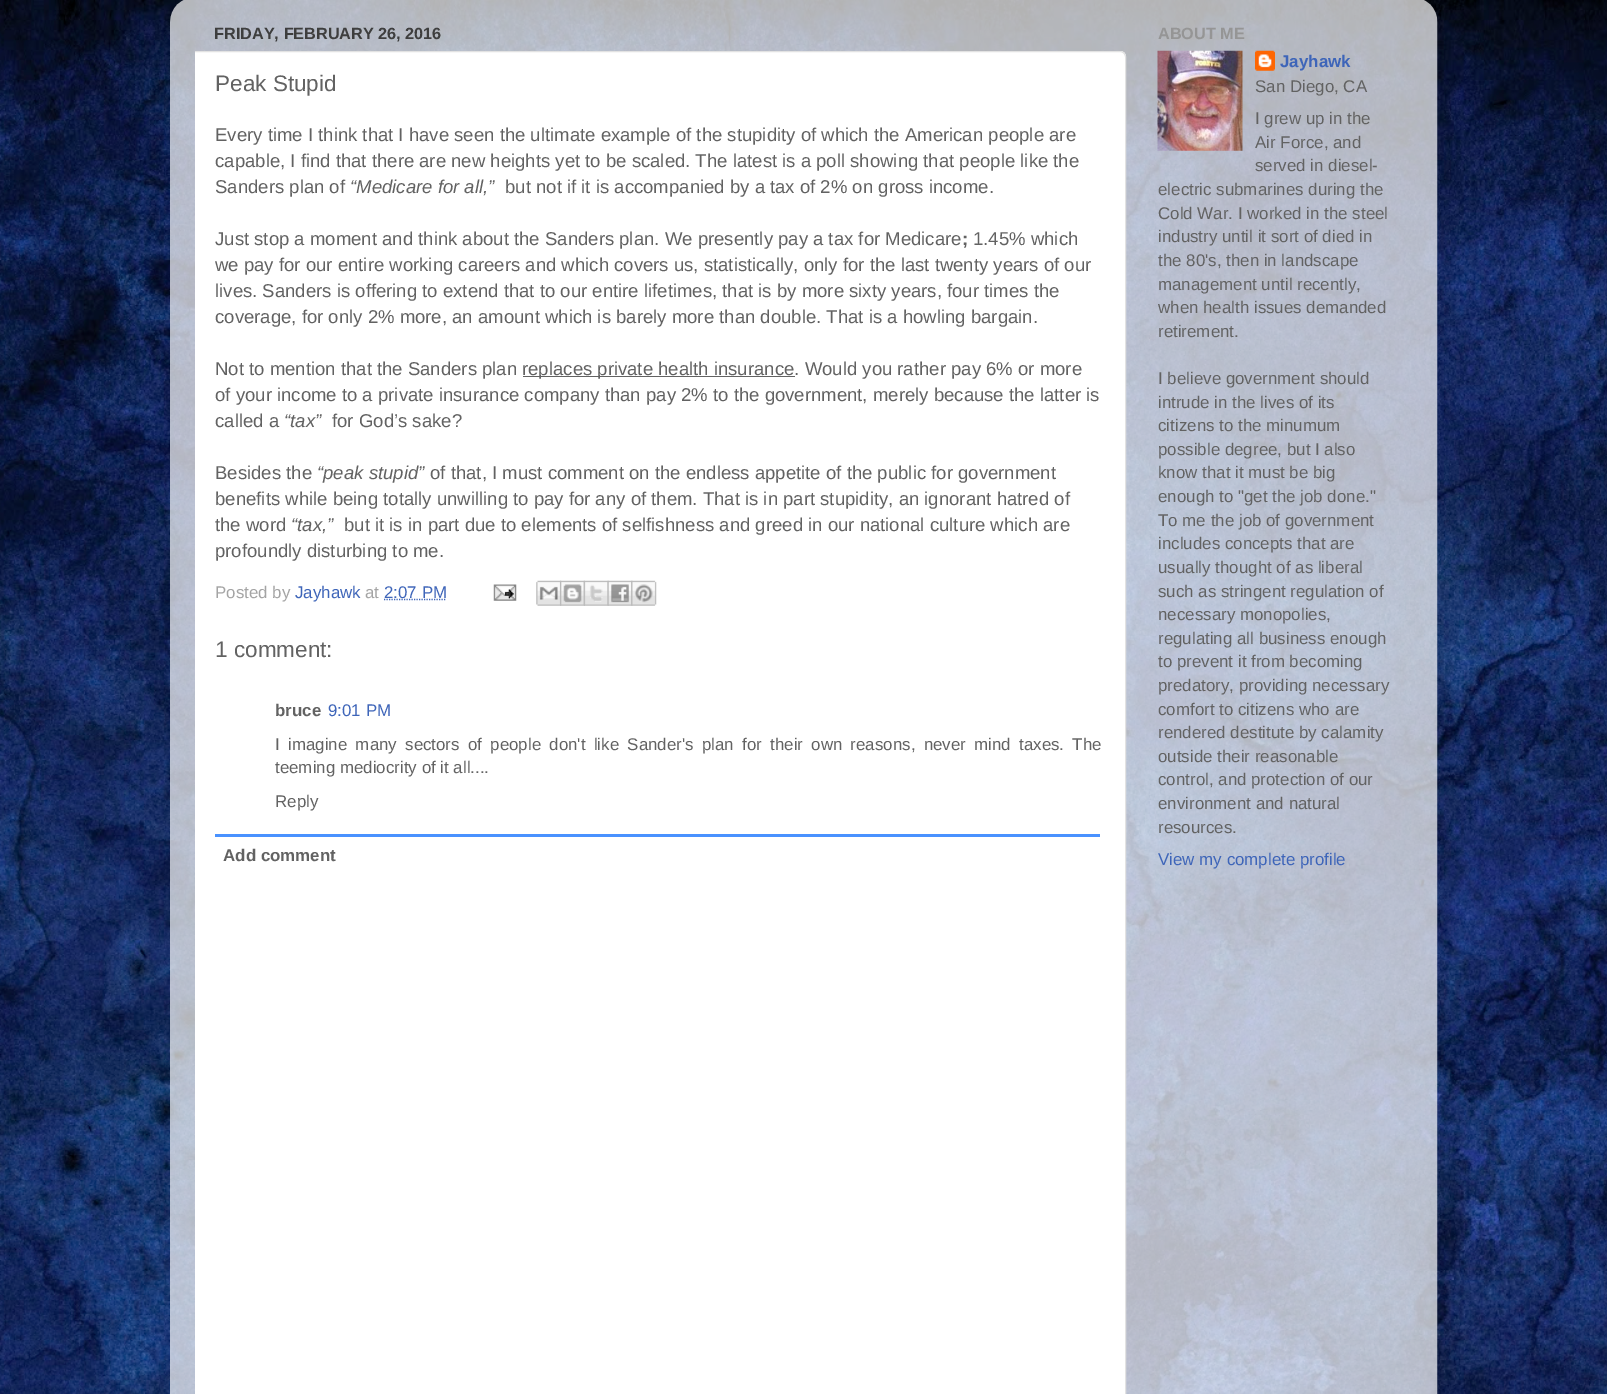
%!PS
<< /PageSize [1607 1394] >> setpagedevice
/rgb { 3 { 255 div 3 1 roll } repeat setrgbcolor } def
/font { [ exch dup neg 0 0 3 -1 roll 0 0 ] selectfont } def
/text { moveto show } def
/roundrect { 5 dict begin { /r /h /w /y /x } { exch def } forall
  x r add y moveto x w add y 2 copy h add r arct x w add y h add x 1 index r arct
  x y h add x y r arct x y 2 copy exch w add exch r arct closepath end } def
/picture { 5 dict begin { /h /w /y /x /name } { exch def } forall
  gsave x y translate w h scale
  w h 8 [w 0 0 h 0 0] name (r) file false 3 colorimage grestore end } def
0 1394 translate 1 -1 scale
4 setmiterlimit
255 255 255 rgb
0 0 1607 1394 rectfill
(img_01.rgb) 0 0 1607 1394 picture
(img_02.rgb) 170 0 1268 1394 picture
195 51 moveto 925 0 rlineto 3.5 0 6 2.5 6 6 rcurveto 0 1337 rlineto 0 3.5 -2.5 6 -6 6 rcurveto -925 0 rlineto closepath fill
gsave
195 16 1218 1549 rectclip
226 226 226 rgb
189.5 51.5 936 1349 5.5 roundrect stroke
grestore
98 98 98 rgb
523 376 272 1 rectfill
62 101 185 rgb
1.2 setlinewidth
[1.25 1.25] 0 setdash
384 599.5 moveto 62.5 0 rlineto stroke
(img_03.rgb) 493 584 24 17 picture
(img_04.rgb) 536 580 26 26 picture
(img_05.rgb) 560 580 25 26 picture
(img_06.rgb) 583 580 26 26 picture
(img_07.rgb) 607 580 26 26 picture
(img_08.rgb) 631 580 26 26 picture
73 146 255 rgb
215 834 885 3 rectfill
(img_09.rgb) 1157 50 86 101 picture
(img_10.rgb) 1255 50 20 21 picture
/LiberationSans-Bold 16.25 font
62 62 62 rgb
(FRIDAY, FEBRUARY 26, 2016) 214 39 text
/LiberationSans-Regular 22.5 font
98 98 98 rgb
(Peak Stupid) 215 91 text
/LiberationSans-Regular 18.55 font
(Every time I think that I have seen the ultimate example of the stupidity of which the American people are) 215 141 text
(capable, I find that there are new heights yet to be scaled. The latest is a poll showing that people like the) 215 167 text
(Sanders plan of) 215 193 text
/LiberationSans-Italic 18.55 font
(“Medicare for all,”) 350 193 text
/LiberationSans-Regular 18.55 font
(but not if it is accompanied by a tax of 2% on gross income.) 505 193 text
(Just stop a moment and think about the Sanders plan. We presently pay a tax for Medicare) 215 245 text
/LiberationSans-Bold 18.55 font
(;) 962 245 text
/LiberationSans-Regular 18.55 font
(1.45% which) 973 245 text
(we pay for our entire working careers and which covers us, statistically, only for the last twenty years of our) 215 271 text
(lives. Sanders is offering to extend that to our entire lifetimes, that is by more sixty years, four times the) 215 297 text
(coverage, for only 2% more, an amount which is barely more than double. That is a howling bargain.) 215 323 text
(Not to mention that the Sanders plan) 215 375 text
(replaces private health insurance. Would you rather pay 6% or more) 522 375 text
(of your income to a private insurance company than pay 2% to the government, merely because the latter is) 215 401 text
(called a) 215 427 text
/LiberationSans-Italic 18.55 font
(“tax”) 284 427 text
/LiberationSans-Regular 18.55 font
(for God’s sake?) 332 427 text
(Besides the) 215 479 text
/LiberationSans-Italic 18.55 font
(“peak stupid”) 317 479 text
/LiberationSans-Regular 18.55 font
(of that, I must comment on the endless appetite of the public for government) 430 479 text
(benefits while being totally unwilling to pay for any of them. That is in part stupidity, an ignorant hatred of) 215 505 text
(the word) 215 531 text
/LiberationSans-Italic 18.55 font
(“tax,”) 291 531 text
/LiberationSans-Regular 18.55 font
(but it is in part due to elements of selfishness and greed in our national culture which are) 344 531 text
(profoundly disturbing to me.) 215 557 text
/LiberationSans-Regular 16.9 font
164 164 164 rgb
(Posted by) 215 598 text
62 101 185 rgb
(Jayhawk) 295 598 text
164 164 164 rgb
(at) 365 598 text
62 101 185 rgb
(2:07 PM) 384 598 text
/LiberationSans-Regular 22.5 font
98 98 98 rgb
(1 comment:) 215 657 text
/LiberationSans-Bold 16.9 font
(bruce) 275 716 text
/LiberationSans-Regular 16.9 font
62 101 185 rgb
(9:01 PM) 328 716 text
98 98 98 rgb
275 750 moveto 3.6 0 32 (I imagine many sectors of people don't like Sander's plan for their own reasons, never mind taxes. The) widthshow
(teeming mediocrity of it all....) 275 773 text
(Reply) 275 807 text
/LiberationSans-Bold 16.9 font
(Add comment) 223 861 text
/LiberationSans-Bold 16.25 font
149 149 149 rgb
(ABOUT ME) 1158 39 text
/LiberationSans-Bold 16.9 font
62 101 185 rgb
(Jayhawk) 1280 67 text
/LiberationSans-Regular 16.9 font
98 98 98 rgb
(San Diego, CA) 1255 92 text
(I grew up in the) 1255 124 text
(Air Force, and) 1255 148 text
(served in diesel-) 1255 171 text
(electric submarines during the) 1158 195 text
(Cold War. I worked in the steel) 1158 219 text
(industry until it sort of died in) 1158 242 text
(the 80's, then in landscape) 1158 266 text
(management until recently,) 1158 290 text
(when health issues demanded) 1158 313 text
(retirement.) 1158 337 text
(I believe government should) 1158 384 text
(intrude in the lives of its) 1158 408 text
(citizens to the minumum) 1158 431 text
(possible degree, but I also) 1158 455 text
(know that it must be big) 1158 478 text
(enough to "get the job done.") 1158 502 text
(To me the job of government) 1158 526 text
(includes concepts that are) 1158 549 text
(usually thought of as liberal) 1158 573 text
(such as stringent regulation of) 1158 597 text
(necessary monopolies,) 1158 620 text
(regulating all business enough) 1158 644 text
(to prevent it from becoming) 1158 667 text
(predatory, providing necessary) 1158 691 text
(comfort to citizens who are) 1158 715 text
(rendered destitute by calamity) 1158 738 text
(outside their reasonable) 1158 762 text
(control, and protection of our) 1158 785 text
(environment and natural) 1158 809 text
(resources.) 1158 833 text
62 101 185 rgb
(View my complete profile) 1158 865 text
showpage
